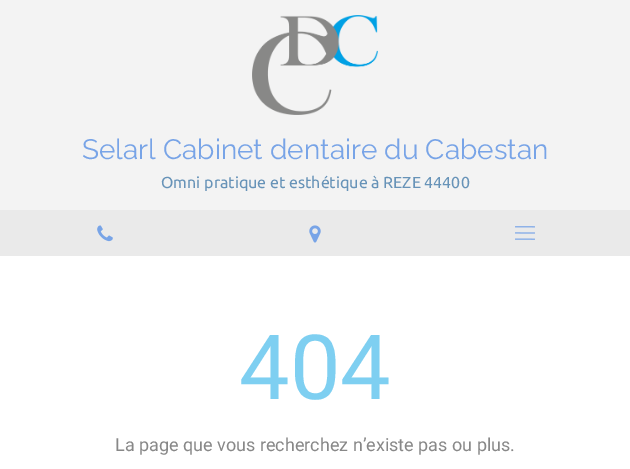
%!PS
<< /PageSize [630 469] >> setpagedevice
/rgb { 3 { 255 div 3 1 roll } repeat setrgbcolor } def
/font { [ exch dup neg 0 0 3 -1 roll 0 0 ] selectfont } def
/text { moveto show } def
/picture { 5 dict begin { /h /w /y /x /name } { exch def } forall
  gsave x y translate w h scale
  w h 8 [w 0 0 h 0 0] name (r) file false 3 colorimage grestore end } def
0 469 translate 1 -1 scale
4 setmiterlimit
255 255 255 rgb
0 0 630 469 rectfill
243 243 243 rgb
0 0 630 210 rectfill
(img_01.rgb) 252 15 126 100 picture
234 234 234 rgb
0 210 630 46 rectfill
(img_02.rgb) 97 225 16 17 picture
(img_03.rgb) 309 225 12 18 picture
(img_04.rgb) 515 226 20 14 picture
/Raleway-Regular 28 font
120 164 231 rgb
(Selarl Cabinet dentaire du Cabestan) 82 159 text
/Ubuntu-Regular 16 font
103 147 184 rgb
(Omni pratique et esthétique à REZE 44400) 161 188 text
/Roboto-Regular 90 font
126 207 241 rgb
(404) 239 399 text
/Roboto-Regular 18 font
136 136 136 rgb
(La page que vous recherchez n’existe pas ou plus.) 115 451 text
showpage
